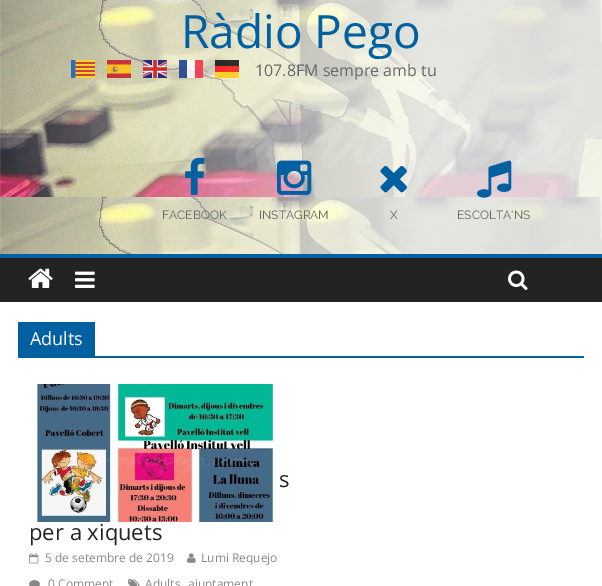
%!PS
<< /PageSize [602 586] /PageUsesTransparency true >> setpagedevice
/rgb { 3 { 255 div 3 1 roll } repeat setrgbcolor } def
/font { [ exch dup neg 0 0 3 -1 roll 0 0 ] selectfont } def
/text { moveto show } def
/alpha { dup .setfillconstantalpha .setstrokeconstantalpha } def
/picture { 5 dict begin { /h /w /y /x /name } { exch def } forall
  gsave x y translate w h scale
  w h 8 [w 0 0 h 0 0] name (r) file false 3 colorimage grestore end } def
0 .pushpdf14devicefilter
0 586 translate 1 -1 scale
4 setmiterlimit
255 255 255 rgb
0 0 602 586 rectfill
(img_01.rgb) 0 0 602 254 picture
(img_02.rgb) 185 157 20 38 picture
(img_03.rgb) 277 160 35 35 picture
(img_04.rgb) 380 165 27 28 picture
(img_05.rgb) 477 160 35 38 picture
35 35 35 rgb
0 258 602 44 rectfill
0 96 162 rgb
0 254 602 4 rectfill
(img_06.rgb) 28 268 25 20 picture
(img_07.rgb) 75 271 20 17 picture
(img_08.rgb) 508 270 20 20 picture
18 356 566 2 rectfill
18 322 77 34 rectfill
(img_09.rgb) 29 384 248 138 picture
(img_10.rgb) 29 553 10 11 picture
(img_11.rgb) 187 553 9 10 picture
(img_12.rgb) 29 580 11 6 picture
(img_13.rgb) 128 579 12 7 picture
(img_14.rgb) 71 60 24 18 picture
(img_15.rgb) 107 60 24 18 picture
(img_16.rgb) 143 60 24 18 picture
0.8 alpha
255 255 255 rgb
179 60 24 18 rectfill
0 38 127 rgb
179 60 8 18 rectfill
243 24 48 rgb
195 60 8 18 rectfill
0 0 0 rgb
215 60 24 6 rectfill
255 0 0 rgb
215 66 24 6 rectfill
255 204 0 rgb
215 72 24 6 rectfill
/OpenSans-Regular 46 font
1 alpha
0 96 162 rgb
(Ràdio Pego) 181 48 text
/OpenSans-Regular 16 font
102 102 102 rgb
(107.8FM sempre amb tu) 255 76 text
/Raleway-Regular 12 font
(FACEBOOK) 162 219 text
(INSTAGRAM) 259 219 text
(X) 390 219 text
(ESCOLTA'NS) 457 219 text
/OpenSans-Regular 18 font
255 255 255 rgb
(Adults) 30 345 text
/OpenSans-Regular 22 font
35 35 35 rgb
(s) 279 487 text
(per a xiquets) 29 540 text
/OpenSans-Regular 12 font
136 136 136 rgb
(5 de setembre de 2019) 45 562 text
(Lumi Requejo) 201 562 text
(0 Comment) 48 588 text
(Adults) 145 588 text
(ajuntament) 188 588 text
.poppdf14devicefilter showpage
